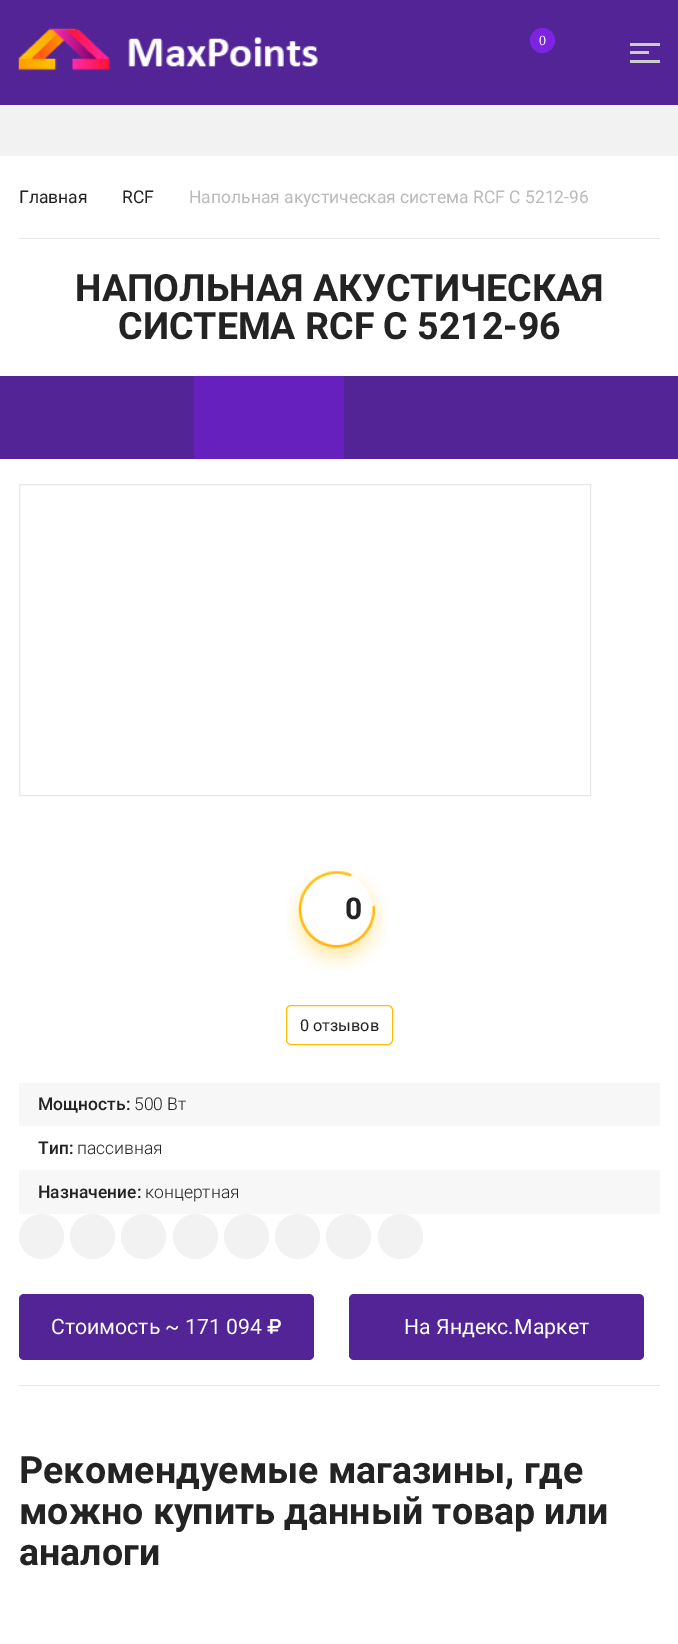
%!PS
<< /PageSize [678 1644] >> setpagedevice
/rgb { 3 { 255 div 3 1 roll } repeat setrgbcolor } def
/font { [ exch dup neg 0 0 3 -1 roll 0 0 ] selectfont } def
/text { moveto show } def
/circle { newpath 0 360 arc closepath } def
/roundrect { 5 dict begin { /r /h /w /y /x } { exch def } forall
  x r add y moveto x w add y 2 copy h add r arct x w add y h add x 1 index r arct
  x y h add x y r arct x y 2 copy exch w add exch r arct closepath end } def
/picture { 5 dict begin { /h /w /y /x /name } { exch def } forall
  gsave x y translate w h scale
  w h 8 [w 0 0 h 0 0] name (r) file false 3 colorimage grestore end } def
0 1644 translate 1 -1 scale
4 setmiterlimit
255 255 255 rgb
0 0 678 1644 rectfill
83 36 150 rgb
0 0 678 105 rectfill
(img_01.rgb) 18 28 300 43 picture
124 36 224 rgb
542.5 40.5 12.5 circle fill
204 204 204 rgb
630 43 30 3 rectfill
630 51 19 3 rectfill
630 60 30 3 rectfill
242 242 242 rgb
0 105 678 51 rectfill
232 232 232 rgb
19 238 641 1 rectfill
83 36 150 rgb
0 376 678 83 rectfill
102 32 189 rgb
194 376 150 83 rectfill
232 232 232 rgb
19.5 484.5 571 311 rectstroke
(img_02.rgb) 286 871 102 100 picture
255 191 0 rgb
286.5 1005.5 106 39 4.5 roundrect stroke
247 247 247 rgb
19 1083 641 43 rectfill
19 1170 641 44 rectfill
242 242 242 rgb
41.5 1236.5 22.5 circle fill
92.5 1236.5 22.5 circle fill
143.5 1236.5 22.5 circle fill
195.5 1236.5 22.5 circle fill
246.5 1236.5 22.5 circle fill
297.5 1236.5 22.5 circle fill
348.5 1236.5 22.5 circle fill
400.5 1236.5 22.5 circle fill
83 36 150 rgb
19 1294 295 66 5 roundrect fill
(img_03.rgb) 267 1319 14 15 picture
349 1294 295 66 5 roundrect fill
232 232 232 rgb
19 1385 641 1 rectfill
/LiberationSerif-Regular 14 font
255 255 255 rgb
(0) 539 45 text
/Roboto-Regular 17.5 font
35 35 35 rgb
(Главная) 19 203 text
(RCF) 122 203 text
186 186 186 rgb
(Напольная акустическая система RCF C 5212-96) 189 203 text
/Roboto-Bold 37.5 font
35 35 35 rgb
(НАПОЛЬНАЯ АКУСТИЧЕСКАЯ) 75 301 text
(СИСТЕМА RCF C 5212-96) 118 339 text
/Roboto-Bold 30 font
(0) 345 919 text
/Roboto-Regular 16.25 font
(0 отзывов) 300 1031 text
/Roboto-Medium 17.5 font
(Мощность:) 38 1110 text
/Roboto-Light 17.5 font
(500 Вт) 134 1110 text
/Roboto-Medium 17.5 font
(Тип:) 38 1154 text
/Roboto-Light 17.5 font
(пассивная) 77 1154 text
/Roboto-Medium 17.5 font
(Назначение:) 38 1198 text
/Roboto-Light 17.5 font
(концертная) 145 1198 text
/Roboto-Regular 21.25 font
255 255 255 rgb
(Стоимость ~ 171 094) 51 1334 text
(На Яндекс.Маркет) 404 1334 text
/Roboto-Bold 37.5 font
35 35 35 rgb
(Рекомендуемые магазины, где) 19 1483 text
(можно купить данный товар или) 19 1524 text
(аналоги) 19 1565 text
showpage
